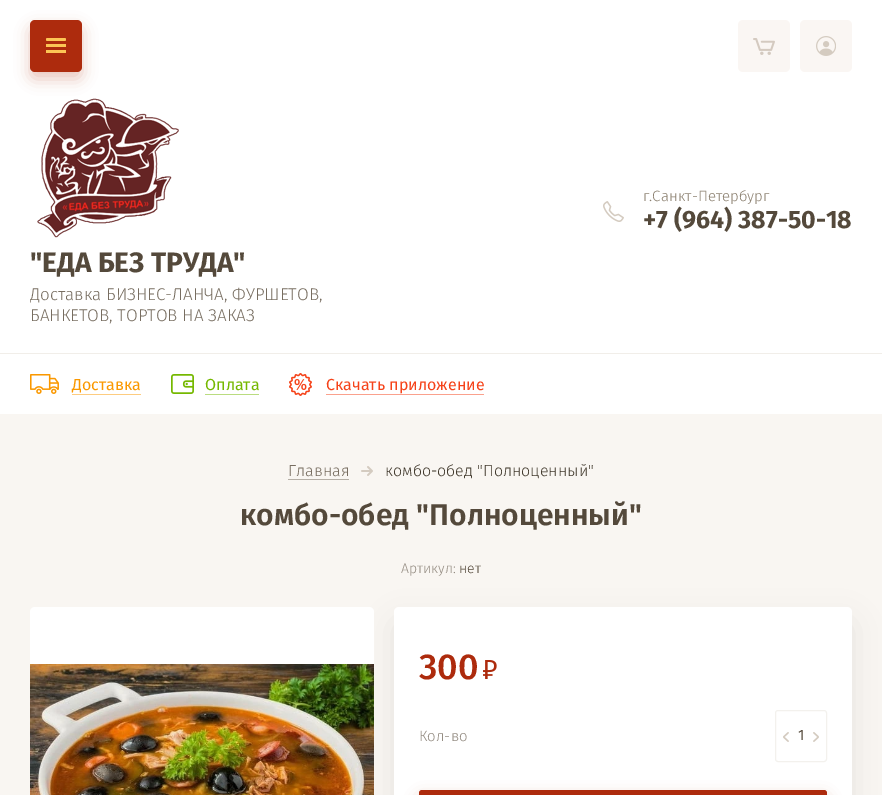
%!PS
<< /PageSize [882 795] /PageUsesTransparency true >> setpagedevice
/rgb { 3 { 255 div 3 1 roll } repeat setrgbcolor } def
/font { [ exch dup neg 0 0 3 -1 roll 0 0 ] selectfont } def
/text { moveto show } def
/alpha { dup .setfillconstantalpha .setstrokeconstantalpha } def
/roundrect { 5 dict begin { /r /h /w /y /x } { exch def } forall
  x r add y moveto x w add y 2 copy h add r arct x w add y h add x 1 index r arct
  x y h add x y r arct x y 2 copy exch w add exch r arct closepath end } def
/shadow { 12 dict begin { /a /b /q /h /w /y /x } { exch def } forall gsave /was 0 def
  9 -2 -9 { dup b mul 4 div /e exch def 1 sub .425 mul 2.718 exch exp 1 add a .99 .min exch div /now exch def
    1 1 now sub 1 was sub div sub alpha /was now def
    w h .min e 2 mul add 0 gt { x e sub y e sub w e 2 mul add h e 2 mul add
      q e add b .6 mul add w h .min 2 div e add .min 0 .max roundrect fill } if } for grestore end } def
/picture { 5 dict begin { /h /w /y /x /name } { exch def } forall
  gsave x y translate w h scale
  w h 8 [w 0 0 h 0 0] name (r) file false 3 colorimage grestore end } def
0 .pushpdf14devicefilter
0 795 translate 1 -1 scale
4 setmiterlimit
249 246 242 rgb
0 0 882 795 rectfill
255 255 255 rgb
0 0 882 414 rectfill
(img_04.rgb) 37 98 142 140 picture
173 43 13 rgb
30 27 52 52 5 7.5 0.27 shadow
30 20 52 52 5 roundrect fill
252 197 85 rgb
46 44 20 3 rectfill
46 38 20 3 1.5 roundrect fill
46 50 20 3 rectfill
250 246 243 rgb
738 20 52 52 5 roundrect fill
(img_01.rgb) 753 38 22 17 picture
800 20 52 52 5 roundrect fill
(img_02.rgb) 816 36 20 20 picture
(img_03.rgb) 603 201 21 21 picture
241 238 233 rgb
0 353 882 1 rectfill
(img_05.rgb) 30 374 29 20 picture
253 204 128 rgb
72 394 69 1 rectfill
(img_06.rgb) 171 374 23 20 picture
186 220 128 rgb
205 394 54 1 rectfill
(img_07.rgb) 289 373 23 23 picture
250 161 141 rgb
326 394 158 1 rectfill
181 175 166 rgb
288 479 61 1 rectfill
(img_08.rgb) 361 466 12 10 picture
0 0 0 rgb
394 622 458 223 5 15 0.07 shadow
255 255 255 rgb
30 607 344 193 5 roundrect fill
(img_09.rgb) 30 664 344 131 picture
394 607 458 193 5 roundrect fill
(img_10.rgb) 483 660 14 19 picture
243 241 237 rgb
775.5 710.5 51 51 2.5 roundrect stroke
(img_11.rgb) 783 732 6 10 picture
(img_12.rgb) 813 732 6 10 picture
173 43 13 rgb
419 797 408 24 3 7.5 0.27 shadow
419 790 408 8 3 roundrect fill
/FiraSans-Light 15 font
140 129 113 rgb
(г.Санкт-Петербург) 643 201 text
/FiraSans-Bold 25 font
84 73 59 rgb
(+7 \(964\) 387-50-18) 643 228 text
/FiraSans-Bold 28 font
("ЕДА БЕЗ ТРУДА") 30 272 text
/FiraSans-Light 17 font
119 109 96 rgb
(Доставка БИЗНЕС-ЛАНЧА, ФУРШЕТОВ,) 30 300 text
(БАНКЕТОВ, ТОРТОВ НА ЗАКАЗ) 30 321 text
/FiraSans-Regular 16 font
250 152 0 rgb
(Доставка) 72 390 text
117 184 0 rgb
(Оплата) 205 390 text
245 67 26 rgb
(Скачать приложение) 326 390 text
/FiraSans-Light 16 font
119 109 96 rgb
(Главная) 288 476 text
66 58 46 rgb
(комбо-обед "Полноценный") 385 476 text
/FiraSans-SemiBold 30 font
84 73 59 rgb
(комбо-обед "Полноценный") 240 525 text
/FiraSans-Light 14 font
149 141 131 rgb
(Артикул:) 401 573 text
84 73 59 rgb
(нет) 459 573 text
/FiraSans-Medium 36 font
173 43 13 rgb
(300) 419 679 text
/FiraSans-Light 15 font
149 141 131 rgb
(Кол-во) 419 741 text
/FiraSans-Regular 15 font
84 73 59 rgb
(1) 798 740 text
.poppdf14devicefilter showpage
